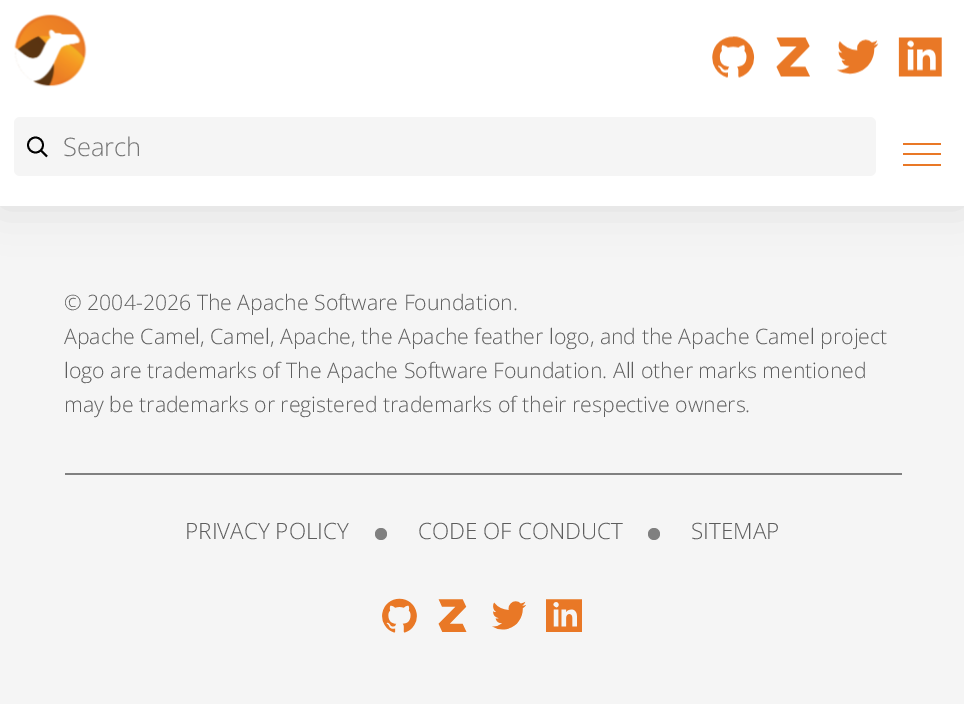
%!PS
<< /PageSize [964 704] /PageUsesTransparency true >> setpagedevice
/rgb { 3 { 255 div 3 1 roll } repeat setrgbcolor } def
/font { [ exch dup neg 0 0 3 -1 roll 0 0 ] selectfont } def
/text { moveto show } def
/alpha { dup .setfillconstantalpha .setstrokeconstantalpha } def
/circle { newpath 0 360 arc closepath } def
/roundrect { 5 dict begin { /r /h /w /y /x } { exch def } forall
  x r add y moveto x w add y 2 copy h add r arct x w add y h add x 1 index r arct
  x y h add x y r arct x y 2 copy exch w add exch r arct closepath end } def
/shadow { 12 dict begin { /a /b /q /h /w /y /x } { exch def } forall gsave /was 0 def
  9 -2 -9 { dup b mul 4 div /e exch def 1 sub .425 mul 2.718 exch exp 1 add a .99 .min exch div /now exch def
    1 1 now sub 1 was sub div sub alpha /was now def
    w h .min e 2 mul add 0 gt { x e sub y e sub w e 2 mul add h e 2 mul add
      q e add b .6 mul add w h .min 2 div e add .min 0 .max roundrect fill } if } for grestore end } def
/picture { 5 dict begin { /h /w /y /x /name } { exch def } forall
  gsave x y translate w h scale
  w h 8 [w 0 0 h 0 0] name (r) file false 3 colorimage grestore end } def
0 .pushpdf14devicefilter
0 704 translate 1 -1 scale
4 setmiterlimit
245 245 245 rgb
0 0 964 704 rectfill
0 0 0 rgb
0 0 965 206 0 22.5 0.1 shadow
255 255 255 rgb
0 0 964 206 rectfill
(img_01.rgb) 14 14 73 73 picture
(img_02.rgb) 712 36 43 42 picture
(img_03.rgb) 776 37 34 40 picture
(img_04.rgb) 837 39 42 36 picture
(img_05.rgb) 898 37 44 40 picture
245 245 245 rgb
14 117 862 59 6 roundrect fill
0 0 0 rgb
1.8 setlinewidth
35.5 145 7.5 circle stroke
40.5 150 moveto 6.5 6.5 rlineto stroke
233 120 38 rgb
903 143 38 2 rectfill
903 153 38 2 rectfill
903 164 38 2 rectfill
128 128 128 rgb
65 473 837 2 rectfill
381 534 6 circle fill
654 534 6 circle fill
(img_06.rgb) 382 598 35 35 picture
(img_07.rgb) 438 599 29 33 picture
(img_08.rgb) 492 601 34 29 picture
(img_09.rgb) 546 599 36 33 picture
/OpenSans-Light 25.5 font
117 117 117 rgb
(Search) 63 156 text
/OpenSans-Light 21.25 font
93 93 93 rgb
(© 2004-2026 The Apache Software Foundation.) 64 310 text
(Apache Camel, Camel, Apache, the Apache feather logo, and the Apache Camel project) 64 344 text
(logo are trademarks of The Apache Software Foundation. All other marks mentioned) 64 378 text
(may be trademarks or registered trademarks of their respective owners.) 64 412 text
/OpenSans-Light 22.5 font
(PRIVACY POLICY) 185 539 text
(CODE OF CONDUCT) 418 539 text
(SITEMAP) 691 539 text
.poppdf14devicefilter showpage
